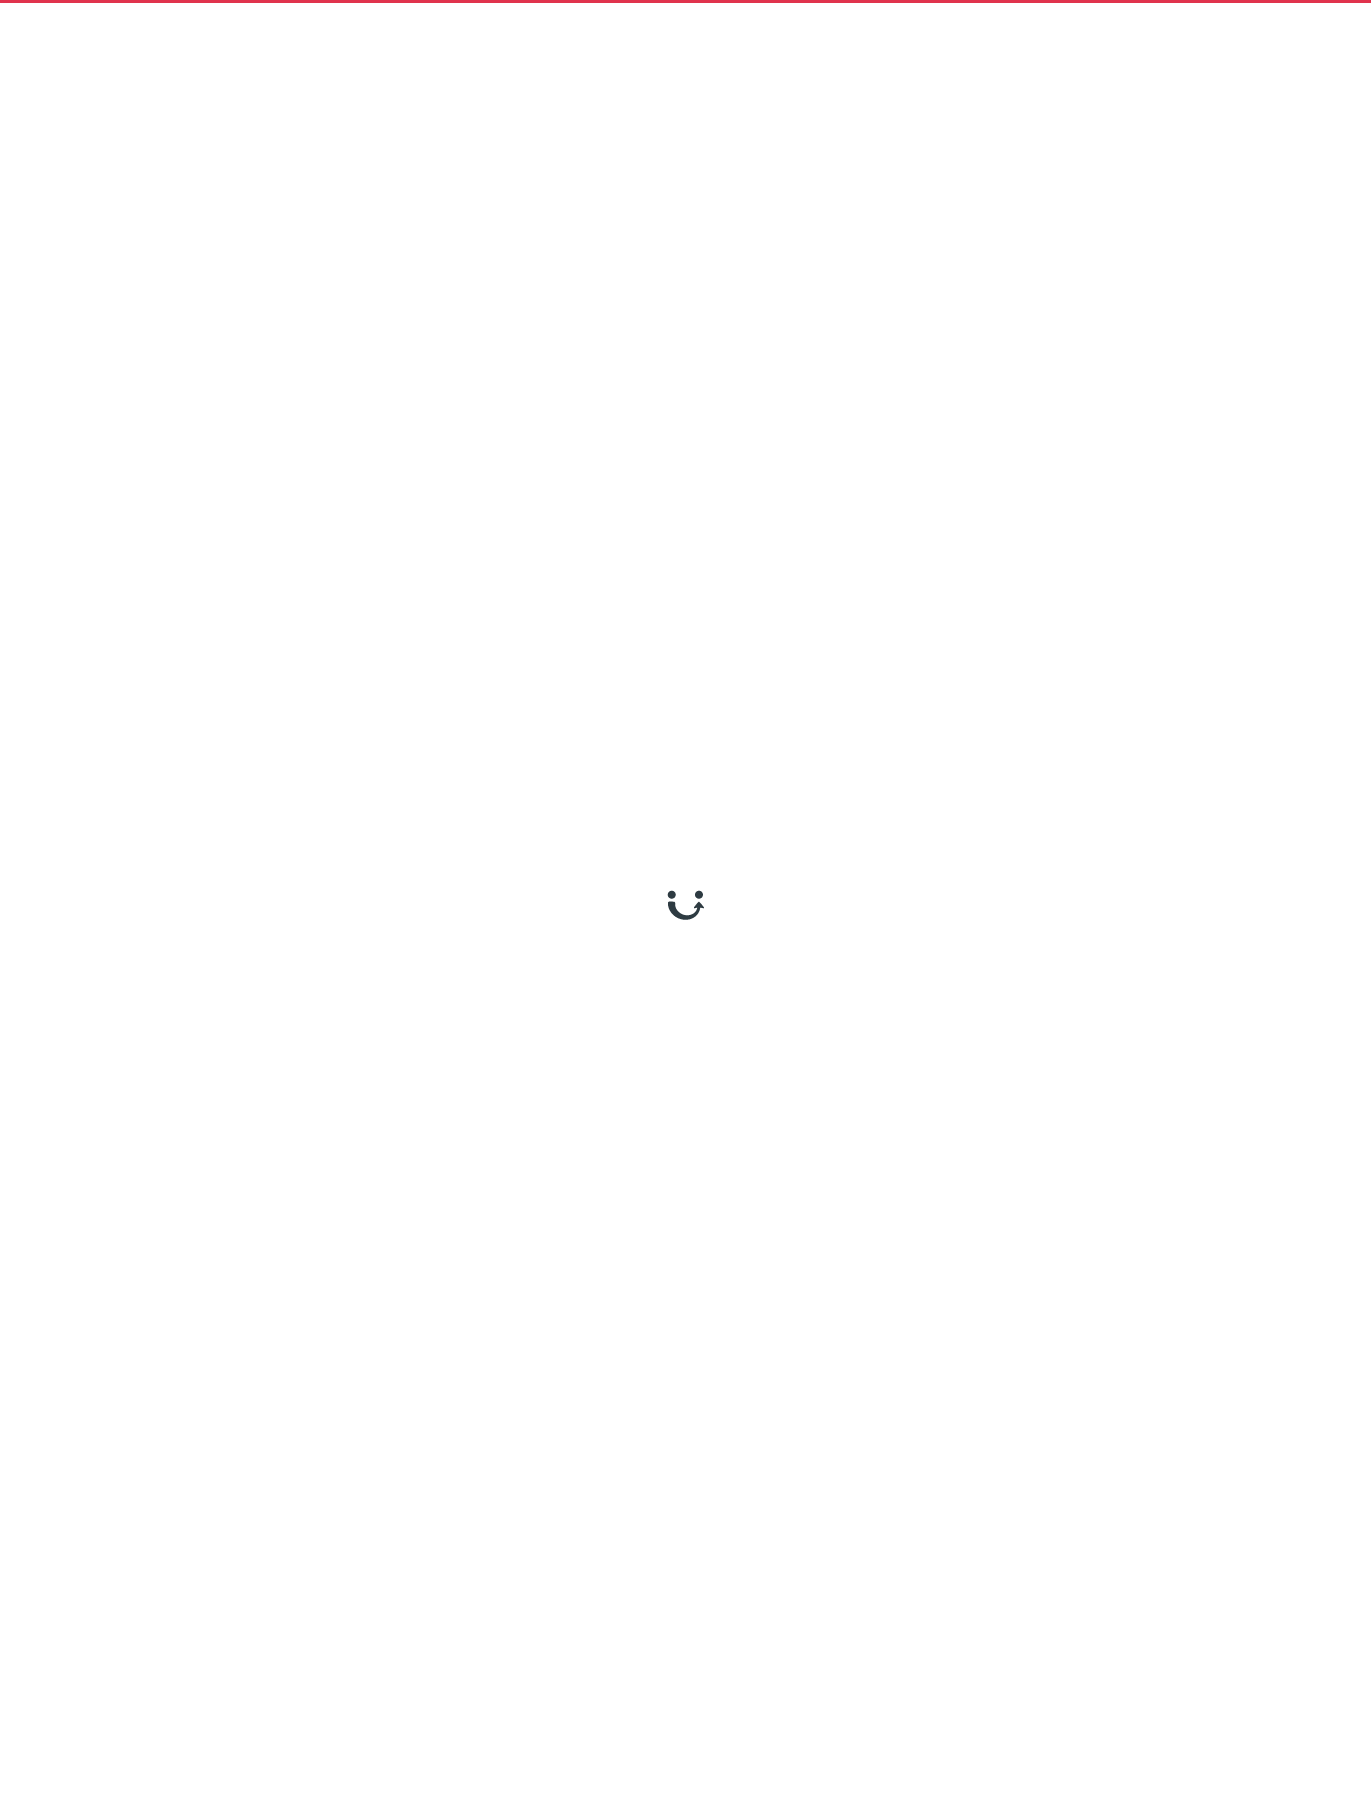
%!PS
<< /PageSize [1371 1809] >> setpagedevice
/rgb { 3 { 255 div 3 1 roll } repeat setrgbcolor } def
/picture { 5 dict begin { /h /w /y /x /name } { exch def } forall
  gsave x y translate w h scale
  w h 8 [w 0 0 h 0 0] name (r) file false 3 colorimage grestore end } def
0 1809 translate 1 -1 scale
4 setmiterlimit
255 255 255 rgb
0 0 1371 1809 rectfill
224 51 77 rgb
0 0 1371 3 rectfill
(img_01.rgb) 667 890 37 30 picture
showpage
